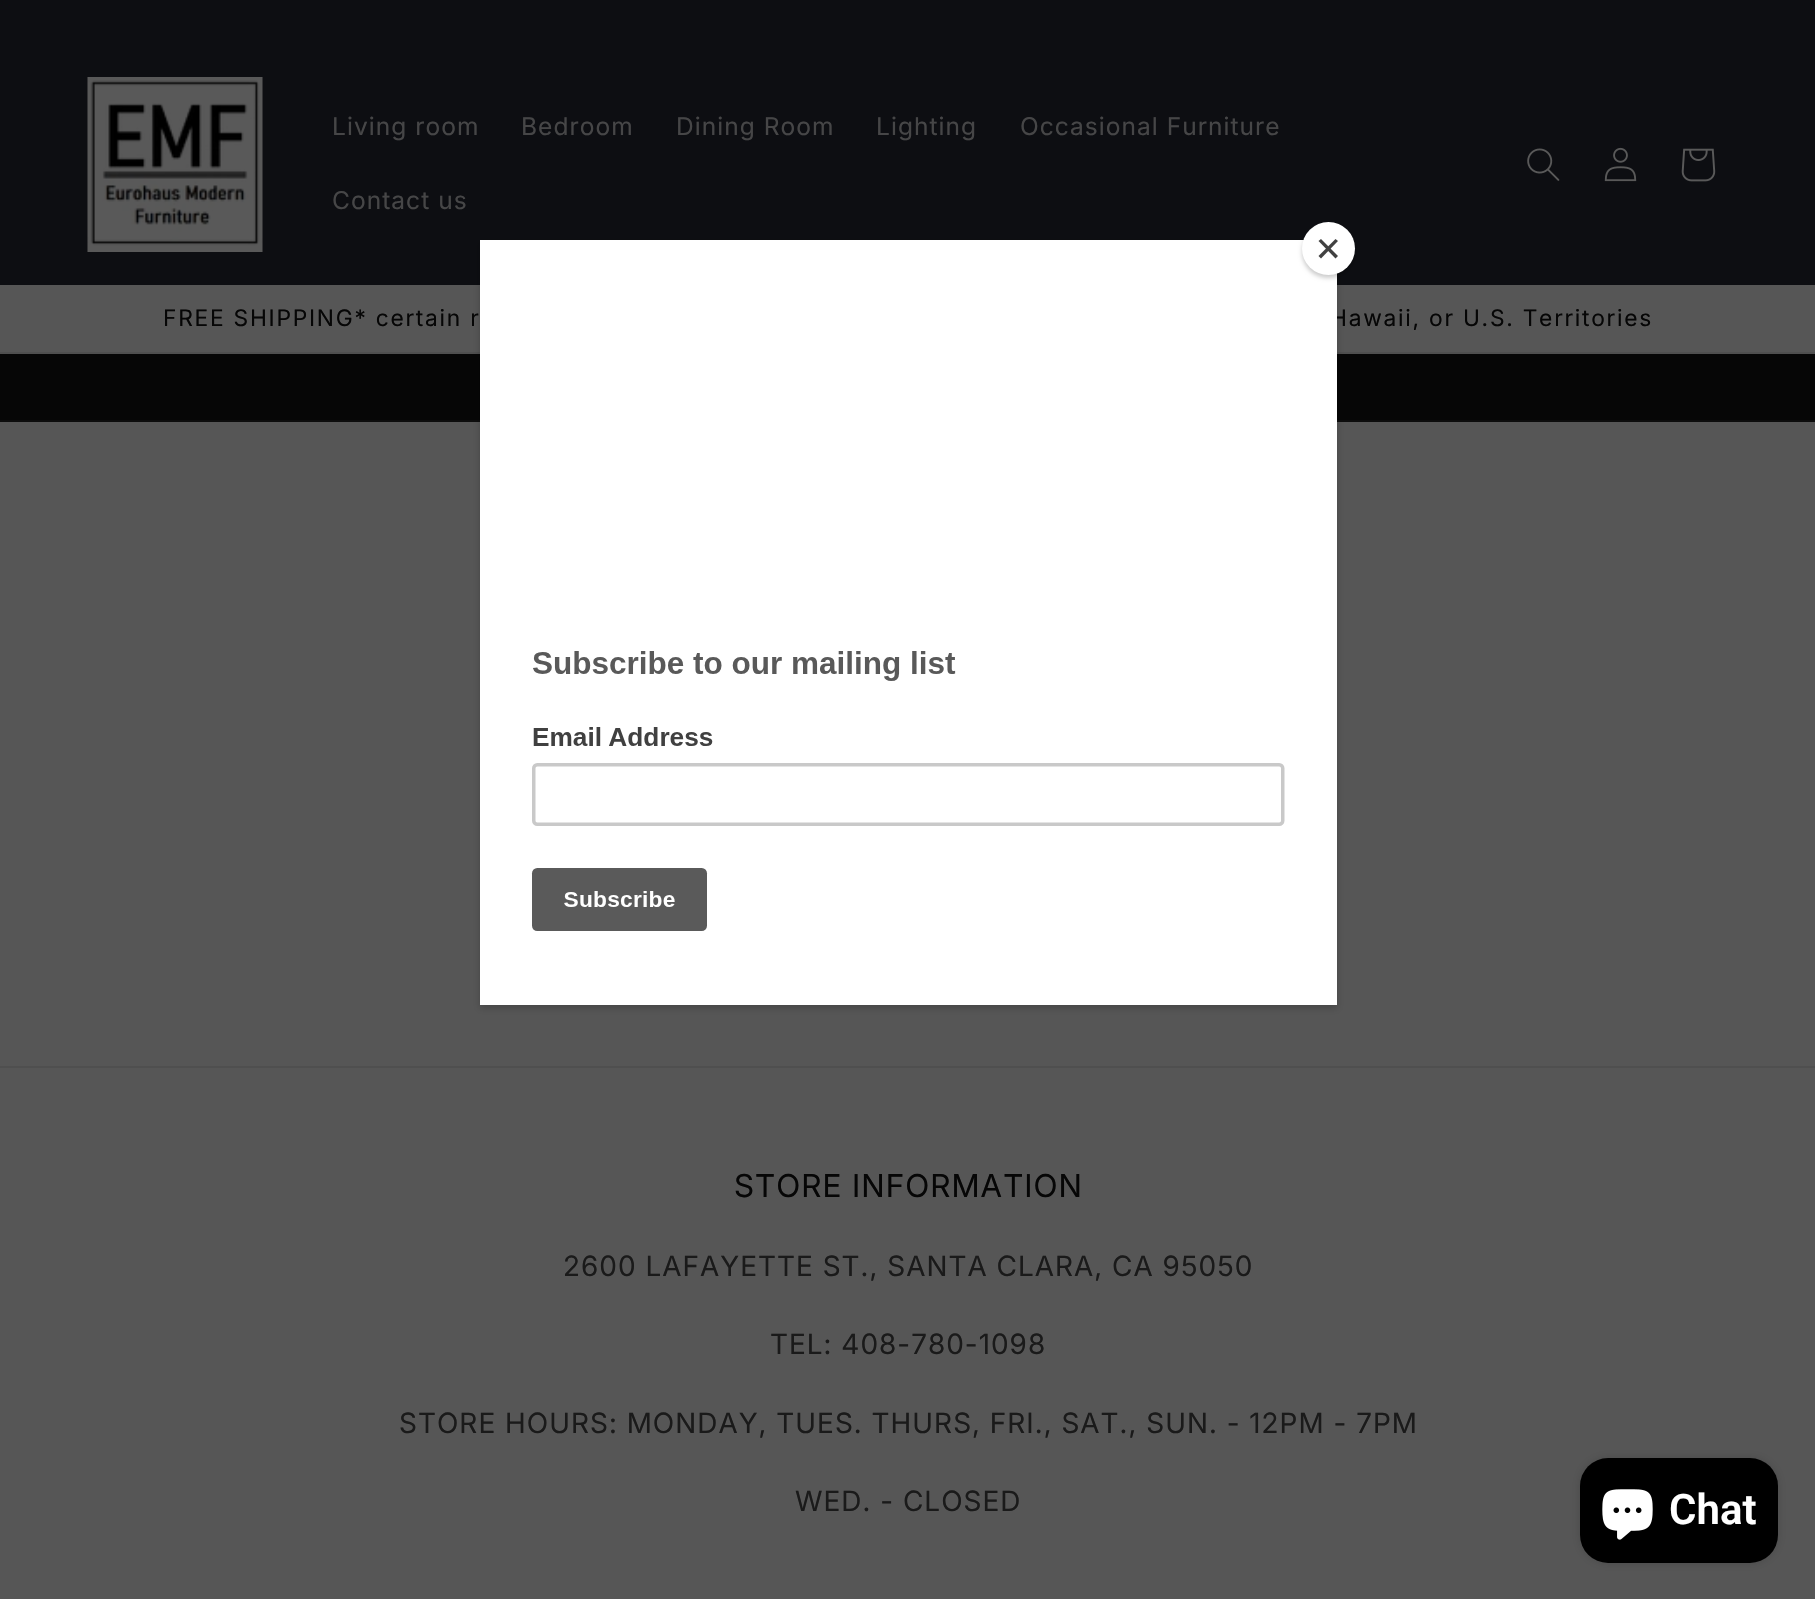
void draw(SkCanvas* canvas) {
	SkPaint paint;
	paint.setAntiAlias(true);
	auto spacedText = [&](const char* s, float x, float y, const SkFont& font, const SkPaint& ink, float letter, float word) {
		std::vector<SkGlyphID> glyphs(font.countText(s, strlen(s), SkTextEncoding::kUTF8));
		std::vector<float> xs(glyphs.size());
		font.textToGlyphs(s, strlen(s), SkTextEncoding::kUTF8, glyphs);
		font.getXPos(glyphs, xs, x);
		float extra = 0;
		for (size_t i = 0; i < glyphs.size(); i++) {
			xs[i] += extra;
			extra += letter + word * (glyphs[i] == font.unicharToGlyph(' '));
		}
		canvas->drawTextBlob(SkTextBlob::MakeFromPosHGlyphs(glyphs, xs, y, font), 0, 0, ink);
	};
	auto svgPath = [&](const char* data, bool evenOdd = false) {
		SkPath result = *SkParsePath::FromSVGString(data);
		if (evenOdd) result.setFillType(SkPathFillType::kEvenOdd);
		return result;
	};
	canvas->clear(0xff565656);
	paint.setColor(0xff0d0e12);
	canvas->drawRect(SkRect::MakeXYWH(0, 0, 1815, 285), paint);
	canvas->drawImageRect(SkImages::DeferredFromEncodedData(SkData::MakeFromFileName("img1.png")), SkRect::MakeXYWH(87, 77, 176, 175), SkSamplingOptions());
	SkFont f1(fontMgr->matchFamilyStyle("Inter", SkFontStyle::Normal()), 24.5);
	f1.setSubpixel(true);
	paint.setColor(0xff464647);
	spacedText("Living room", 332, 135, f1, paint, 1.05, 0);
	spacedText("Bedroom", 521, 135, f1, paint, 1.05, 0);
	spacedText("Dining Room", 676, 135, f1, paint, 1.05, 0);
	spacedText("Lighting", 876, 135, f1, paint, 1.05, 0);
	spacedText("Occasional Furniture", 1020, 135, f1, paint, 1.05, 0);
	spacedText("Contact us", 332, 209, f1, paint, 1.05, 0);
	canvas->drawImageRect(SkImages::DeferredFromEncodedData(SkData::MakeFromFileName("img2.png")), SkRect::MakeXYWH(1527, 148, 33, 33), SkSamplingOptions());
	canvas->drawImageRect(SkImages::DeferredFromEncodedData(SkData::MakeFromFileName("img3.png")), SkRect::MakeXYWH(1604, 147, 33, 35), SkSamplingOptions());
	canvas->drawImageRect(SkImages::DeferredFromEncodedData(SkData::MakeFromFileName("img4.png")), SkRect::MakeXYWH(1681, 148, 35, 34), SkSamplingOptions());
	paint.setColor(0xff4f4f4f);
	canvas->drawRect(SkRect::MakeXYWH(0, 352, 1815, 2), paint);
	paint.setColor(0xff060606);
	canvas->drawRect(SkRect::MakeXYWH(0, 354, 1815, 66), paint);
	paint.setColor(0xff0d0d0d);
	canvas->drawRect(SkRect::MakeXYWH(0, 420, 1815, 2), paint);
	paint.setColor(0x33000000);
	paint.setMaskFilter(SkMaskFilter::MakeBlur(kNormal_SkBlurStyle, 3.5));
	canvas->drawRect(SkRect::MakeXYWH(480, 243, 857, 765), paint);
	paint.setMaskFilter(nullptr);
	SkFont f2(fontMgr->matchFamilyStyle("Inter", SkFontStyle::Normal()), 22.75);
	f2.setSubpixel(true);
	paint.setColor(0xff060606);
	spacedText("Hawaii, or U.S. Territories", 1330, 326, f2, paint, 1.75, 0);
	canvas->drawImageRect(SkImages::DeferredFromEncodedData(SkData::MakeFromFileName("img5.png")), SkRect::MakeXYWH(480, 240, 857, 765), SkSamplingOptions());
	paint.setColor(0x33000000);
	paint.setMaskFilter(SkMaskFilter::MakeBlur(kNormal_SkBlurStyle, 2));
	canvas->drawRoundRect(SkRect::MakeXYWH(1302, 226, 53, 52), 26, 26, paint);
	paint.setMaskFilter(nullptr);
	paint.setColor(0xffffffff);
	canvas->drawCircle(1328.5, 248.5, 26.5, paint);
	paint.setColor(0xff414141);
	canvas->drawPath(svgPath("M1335.5 239L1338 241L1321 258.5L1318.5 256Z"), paint);
	canvas->drawPath(svgPath("M1318.5 241L1321 239L1338 256L1335.5 258.5Z"), paint);
	paint.setColor(0xff060606);
	spacedText("FREE SHIPPING* certain r", 163, 326, f2, paint, 1.75, 0);
	paint.setColor(0xff4f4f4f);
	canvas->drawRect(SkRect::MakeXYWH(0, 1066, 1815, 2), paint);
	SkFont f3(fontMgr->matchFamilyStyle("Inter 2", SkFontStyle::Normal()), 31.5);
	f3.setSubpixel(true);
	paint.setColor(0xff060606);
	spacedText("STORE INFORMATION", 734, 1197, f3, paint, 1.05, 0);
	SkFont f4(fontMgr->matchFamilyStyle("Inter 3", SkFontStyle::Normal()), 28);
	f4.setSubpixel(true);
	paint.setColor(0xff1a1a1a);
	spacedText("2600 LAFAYETTE ST., SANTA CLARA, CA 95050", 563, 1276, f4, paint, 1.05, 0);
	spacedText("TEL: 408-780-1098", 770, 1354, f4, paint, 1.05, 0);
	spacedText("STORE HOURS: MONDAY, TUES. THURS, FRI., SAT., SUN. - 12PM - 7PM", 399, 1433, f4, paint, 1.05, 0);
	spacedText("WED. - CLOSED", 795, 1511, f4, paint, 1.05, 0);
	paint.setColor(0x26000000);
	paint.setMaskFilter(SkMaskFilter::MakeBlur(kNormal_SkBlurStyle, 4.5));
	canvas->drawRoundRect(SkRect::MakeXYWH(1580, 1458, 198, 105), 28, 28, paint);
	paint.setMaskFilter(nullptr);
	paint.setColor(0xff000000);
	canvas->drawRoundRect(SkRect::MakeXYWH(1580, 1458, 198, 105), 28, 28, paint);
	canvas->drawImageRect(SkImages::DeferredFromEncodedData(SkData::MakeFromFileName("img6.png")), SkRect::MakeXYWH(1602, 1489, 51, 51), SkSamplingOptions());
	SkFont f5(fontMgr->matchFamilyStyle("Roboto", SkFontStyle(600, SkFontStyle::kNormal_Width, SkFontStyle::kUpright_Slant)), 42);
	f5.setSubpixel(true);
	paint.setColor(0xffffffff);
	canvas->drawString("Chat", 1669, 1524, f5, paint);
}
